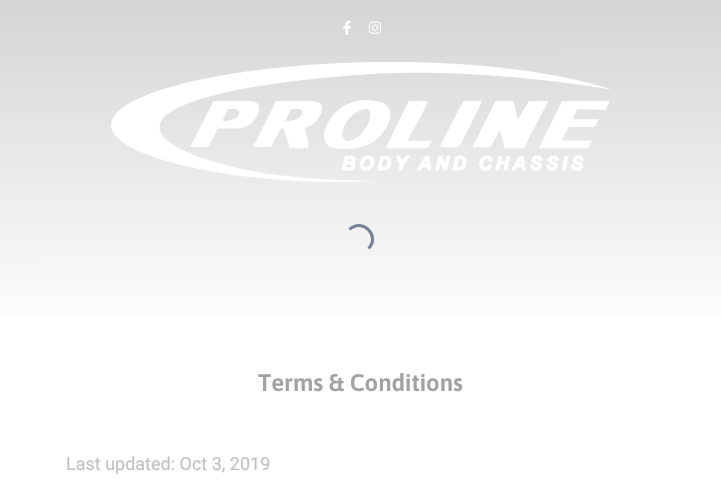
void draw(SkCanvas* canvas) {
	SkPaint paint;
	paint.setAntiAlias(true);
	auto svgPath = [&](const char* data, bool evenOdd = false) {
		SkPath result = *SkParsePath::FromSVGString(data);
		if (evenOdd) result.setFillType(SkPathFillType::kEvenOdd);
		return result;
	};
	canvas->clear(0xffffffff);
	{
		const SkColor colors[] = {0xffababab, 0xffffffff};
		const float stops[] = {0, 1};
		const SkPoint ends[] = {{360, -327}, {361, 336}};
		paint.setShader(SkGradientShader::MakeLinear(ends, colors, stops, 2, SkTileMode::kClamp));
		paint.setAlpha(255);
	}
	canvas->drawRect(SkRect::MakeXYWH(0, 0, 721, 317), paint);
	paint.setStroke(true);
	paint.setStrokeWidth(3);
	paint.setShader(nullptr);
	paint.setColor(0x85001c41);
	canvas->drawPath(svgPath("M349.5 229.5C362 217 381 236 368.5 248.5"), paint);
	canvas->drawImageRect(SkImages::DeferredFromEncodedData(SkData::MakeFromFileName("img1.png")), SkRect::MakeXYWH(343, 20, 8, 15), SkSamplingOptions());
	canvas->drawImageRect(SkImages::DeferredFromEncodedData(SkData::MakeFromFileName("img2.png")), SkRect::MakeXYWH(368, 21, 14, 13), SkSamplingOptions());
	canvas->drawImageRect(SkImages::DeferredFromEncodedData(SkData::MakeFromFileName("img3.png")), SkRect::MakeXYWH(111, 62, 500, 120), SkSamplingOptions());
	SkFont f1(fontMgr->matchFamilyStyle("Asap", SkFontStyle(600, SkFontStyle::kNormal_Width, SkFontStyle::kUpright_Slant)), 24);
	f1.setSubpixel(true);
	paint.setStroke(false);
	paint.setColor(0xffa1a2a4);
	canvas->drawString("Terms & Conditions", 258, 391, f1, paint);
	SkFont f2(fontMgr->matchFamilyStyle("Roboto", SkFontStyle::Normal()), 18);
	f2.setSubpixel(true);
	paint.setColor(0xffc0c0c0);
	canvas->drawString("Last updated: Oct 3, 2019", 66, 470, f2, paint);
}
